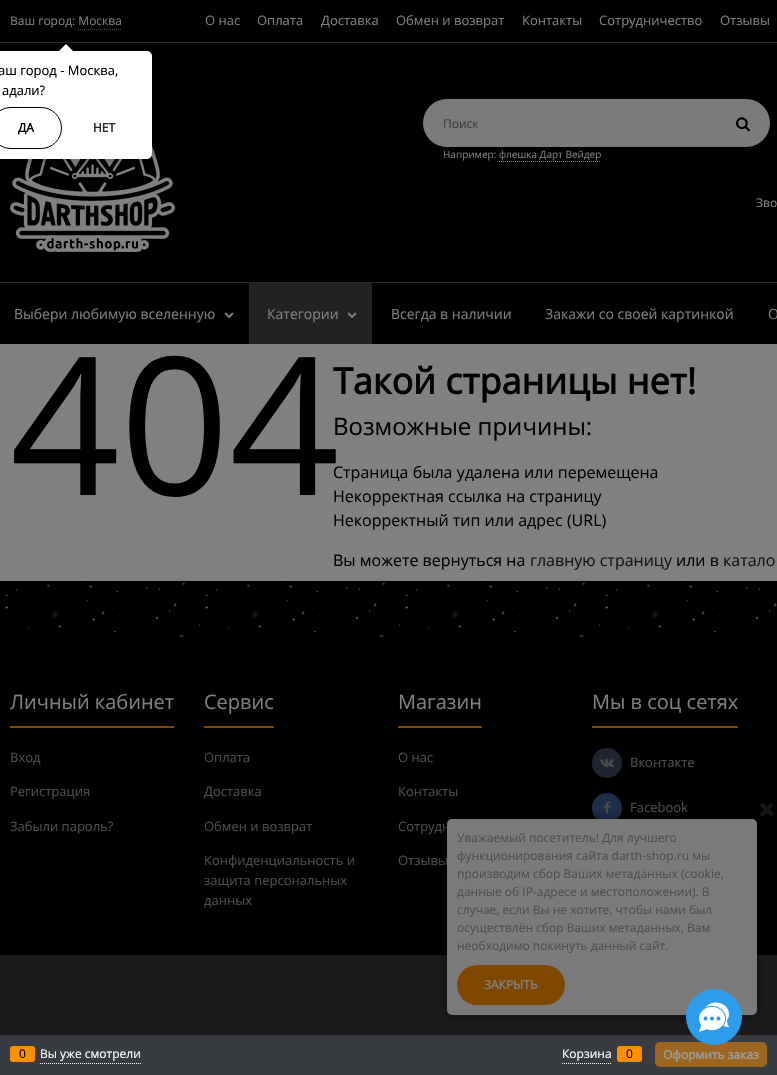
void draw(SkCanvas* canvas) {
	SkPaint paint;
	paint.setAntiAlias(true);
	auto svgPath = [&](const char* data, bool evenOdd = false) {
		SkPath result = *SkParsePath::FromSVGString(data);
		if (evenOdd) result.setFillType(SkPathFillType::kEvenOdd);
		return result;
	};
	canvas->clear(0xffffffff);
	canvas->drawImageRect(SkImages::DeferredFromEncodedData(SkData::MakeFromFileName("img1.png")), SkRect::MakeXYWH(0, 283, 777, 354), SkSamplingOptions());
	paint.setColor(0xff000000);
	canvas->drawRect(SkRect::MakeXYWH(0, 0, 777, 282), paint);
	paint.setColor(0xff282828);
	canvas->drawRect(SkRect::MakeXYWH(0, 282, 777, 1), paint);
	canvas->drawRect(SkRect::MakeXYWH(0, 42, 777, 1), paint);
	SkFont f1(fontMgr->matchFamilyStyle("Open Sans", SkFontStyle::Normal()), 12);
	f1.setSubpixel(true);
	paint.setColor(0xff808080);
	canvas->drawString("Ваш город: Москва", 10, 25, f1, paint);
	paint.setStroke(true);
	paint.setStrokeWidth(1);
	paint.setColor(0xff4a4b4e);
	paint.setPathEffect(SkDashPathEffect::Make({{1, 1}}, 0));
	canvas->drawPath(svgPath("M78 29.5H122"), paint);
	paint.setPathEffect(nullptr);
	SkFont f2(fontMgr->matchFamilyStyle("Open Sans", SkFontStyle::Normal()), 13);
	f2.setSubpixel(true);
	paint.setStroke(false);
	paint.setColor(0xff808080);
	canvas->drawString("О нас", 205, 25, f2, paint);
	canvas->drawString("Оплата", 257, 25, f2, paint);
	canvas->drawString("Доставка", 321, 25, f2, paint);
	canvas->drawString("Обмен и возврат", 396, 25, f2, paint);
	canvas->drawString("Контакты", 522, 25, f2, paint);
	canvas->drawString("Сотрудничество", 599, 25, f2, paint);
	canvas->drawString("Отзывы", 720, 25, f2, paint);
	canvas->drawImageRect(SkImages::DeferredFromEncodedData(SkData::MakeFromFileName("img2.png")), SkRect::MakeXYWH(10, 146, 165, 106), SkSamplingOptions());
	paint.setColor(0xff7b7b7b);
	canvas->drawRoundRect(SkRect::MakeXYWH(423, 99, 347, 48), 24, 24, paint);
	paint.setColor(0xff3b3b3b);
	canvas->drawString("Поиск", 443, 128, f1, paint);
	SkFont f3(fontMgr->matchFamilyStyle("Open Sans", SkFontStyle::Normal()), 10);
	f3.setSubpixel(true);
	paint.setColor(0xff808080);
	canvas->drawString("Например: флешка Дарт Вейдер", 443, 158, f3, paint);
	paint.setStroke(true);
	paint.setPathEffect(SkDashPathEffect::Make({{1, 1}}, 0));
	canvas->drawPath(svgPath("M499 161.5H601"), paint);
	paint.setPathEffect(nullptr);
	canvas->drawImageRect(SkImages::DeferredFromEncodedData(SkData::MakeFromFileName("img3.png")), SkRect::MakeXYWH(736, 117, 14, 15), SkSamplingOptions());
	paint.setStroke(false);
	canvas->drawString("Зво", 756, 207, f1, paint);
	paint.setColor(0xff000000);
	canvas->drawRoundRect(SkRect::MakeXYWH(0, 283, 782, 61), 5, 5, paint);
	SkFont f4(fontMgr->matchFamilyStyle("Open Sans", SkFontStyle::Normal()), 14);
	f4.setSubpixel(true);
	paint.setColor(0xff808080);
	canvas->drawString("Выбери любимую вселенную", 14, 319, f4, paint);
	canvas->drawImageRect(SkImages::DeferredFromEncodedData(SkData::MakeFromFileName("img4.png")), SkRect::MakeXYWH(224, 312, 10, 7), SkSamplingOptions());
	paint.setColor(0xff222222);
	canvas->drawRect(SkRect::MakeXYWH(249, 283, 123, 61), paint);
	paint.setColor(0xff808080);
	canvas->drawString("Категории", 267, 319, f4, paint);
	canvas->drawImageRect(SkImages::DeferredFromEncodedData(SkData::MakeFromFileName("img5.png")), SkRect::MakeXYWH(347, 312, 10, 7), SkSamplingOptions());
	canvas->drawString("Всегда в наличии", 391, 319, f4, paint);
	canvas->drawString("Закажи со своей картинкой", 545, 319, f4, paint);
	canvas->drawString("О", 768, 319, f4, paint);
	canvas->drawRect(SkRect::MakeXYWH(0, 344, 777, 237), paint);
	SkFont f5(fontMgr->matchFamilyStyle("Open Sans", SkFontStyle::Bold()), 36);
	f5.setSubpixel(true);
	paint.setColor(0xff000000);
	canvas->drawString("Такой страницы нет!", 333, 394, f5, paint);
	SkFont f6(fontMgr->matchFamilyStyle("Open Sans", SkFontStyle::Normal()), 24);
	f6.setSubpixel(true);
	canvas->drawString("Возможные причины:", 333, 435, f6, paint);
	SkFont f7(fontMgr->matchFamilyStyle("Open Sans", SkFontStyle::Normal()), 16);
	f7.setSubpixel(true);
	canvas->drawString("Страница была удалена или перемещена", 333, 478, f7, paint);
	canvas->drawString("Некорректная ссылка на страницу", 333, 502, f7, paint);
	SkFont f8(fontMgr->matchFamilyStyle("Open Sans", SkFontStyle::Normal()), 192);
	f8.setSubpixel(true);
	canvas->drawString("404", 10, 495, f8, paint);
	canvas->drawString("Некорректный тип или адрес (URL)", 333, 526, f7, paint);
	canvas->drawString("Вы можете вернуться на", 333, 566, f7, paint);
	paint.setColor(0xff131416);
	canvas->drawString("главную страницу", 530, 566, f7, paint);
	paint.setColor(0xff000000);
	canvas->drawString("или в", 676, 566, f7, paint);
	paint.setColor(0xff131416);
	canvas->drawString("катало", 723, 566, f7, paint);
	paint.setColor(0xff000000);
	canvas->drawRect(SkRect::MakeXYWH(0, 637, 777, 318), paint);
	paint.setColor(0xff804700);
	canvas->drawRect(SkRect::MakeXYWH(10, 726, 164, 2), paint);
	SkFont f9(fontMgr->matchFamilyStyle("Open Sans", SkFontStyle::Normal()), 20);
	f9.setSubpixel(true);
	paint.setColor(0xff808080);
	canvas->drawString("Личный кабинет", 10, 709, f9, paint);
	paint.setColor(0xff4d4d4d);
	canvas->drawString("Вход", 10, 762, f2, paint);
	canvas->drawString("Регистрация", 10, 796, f2, paint);
	canvas->drawString("Забыли пароль?", 10, 831, f2, paint);
	paint.setColor(0xff804700);
	canvas->drawRect(SkRect::MakeXYWH(204, 726, 70, 2), paint);
	paint.setColor(0xff808080);
	canvas->drawString("Сервис", 204, 709, f9, paint);
	paint.setColor(0xff4d4d4d);
	canvas->drawString("Оплата", 204, 762, f2, paint);
	canvas->drawString("Доставка", 204, 796, f2, paint);
	canvas->drawString("Обмен и возврат", 204, 831, f2, paint);
	canvas->drawString("Конфиденциальность и", 204, 865, f2, paint);
	canvas->drawString("защита персональных", 204, 885, f2, paint);
	canvas->drawString("данных", 204, 905, f2, paint);
	paint.setColor(0xff804700);
	canvas->drawRect(SkRect::MakeXYWH(398, 726, 84, 2), paint);
	paint.setColor(0xff808080);
	canvas->drawString("Магазин", 398, 709, f9, paint);
	paint.setColor(0xff4d4d4d);
	canvas->drawString("О нас", 398, 762, f2, paint);
	canvas->drawString("Контакты", 398, 796, f2, paint);
	canvas->drawString("Сотрудн", 398, 831, f2, paint);
	canvas->drawString("Отзывы", 398, 865, f2, paint);
	paint.setColor(0xff804700);
	canvas->drawRect(SkRect::MakeXYWH(592, 726, 146, 2), paint);
	paint.setColor(0xff808080);
	canvas->drawString("Мы в соц сетях", 592, 709, f9, paint);
	paint.setColor(0xff1e2530);
	canvas->drawCircle(607, 763, 15, paint);
	canvas->drawImageRect(SkImages::DeferredFromEncodedData(SkData::MakeFromFileName("img6.png")), SkRect::MakeXYWH(600, 759, 14, 9), SkSamplingOptions());
	paint.setColor(0xff4d4d4d);
	canvas->drawString("Вконтакте", 630, 767, f2, paint);
	paint.setColor(0xff202e4b);
	canvas->drawCircle(607, 808, 15, paint);
	canvas->drawImageRect(SkImages::DeferredFromEncodedData(SkData::MakeFromFileName("img7.png")), SkRect::MakeXYWH(604, 801, 7, 13), SkSamplingOptions());
	paint.setColor(0xff4d4d4d);
	canvas->drawString("Facebook", 630, 812, f2, paint);
	paint.setColor(0xff1a1a1a);
	canvas->drawRect(SkRect::MakeXYWH(0, 955, 777, 80), paint);
	paint.setColor(0xff383c40);
	canvas->drawRect(SkRect::MakeXYWH(0, 1035, 777, 40), paint);
	paint.setStroke(true);
	paint.setColor(0xffffffff);
	paint.setPathEffect(SkDashPathEffect::Make({{1, 1}}, 0));
	canvas->drawPath(svgPath("M40 1063.5H141"), paint);
	paint.setPathEffect(nullptr);
	paint.setStroke(false);
	paint.setColor(0xffff8e00);
	canvas->drawRoundRect(SkRect::MakeXYWH(10, 1046, 25, 16), 3, 3, paint);
	paint.setColor(0xff000000);
	canvas->drawString("0", 19, 1058, f1, paint);
	paint.setColor(0xffffffff);
	canvas->drawString("Вы уже смотрели", 40, 1058, f1, paint);
	paint.setStroke(true);
	paint.setPathEffect(SkDashPathEffect::Make({{1, 1}}, 0));
	canvas->drawPath(svgPath("M562 1063.5H612"), paint);
	paint.setPathEffect(nullptr);
	paint.setStroke(false);
	canvas->drawString("Корзина", 562, 1058, f1, paint);
	paint.setColor(0xffff8e00);
	canvas->drawRoundRect(SkRect::MakeXYWH(617, 1046, 25, 16), 3, 3, paint);
	paint.setColor(0xff000000);
	canvas->drawString("0", 626, 1058, f1, paint);
	paint.setColor(0xff9c6520);
	canvas->drawRoundRect(SkRect::MakeXYWH(655, 1042, 112, 25), 5, 5, paint);
	SkFont f10(fontMgr->matchFamilyStyle("Open Sans", SkFontStyle::Bold()), 12);
	f10.setSubpixel(true);
	paint.setColor(0xff9c9ea0);
	canvas->drawString("Оформить заказ", 663, 1059, f10, paint);
	paint.setColor(0x40000000);
	paint.setMaskFilter(SkMaskFilter::MakeBlur(kNormal_SkBlurStyle, 4.5));
	canvas->drawRoundRect(SkRect::MakeXYWH(-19, 51, 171, 108), 5, 5, paint);
	paint.setMaskFilter(nullptr);
	paint.setColor(0xffffffff);
	canvas->drawRoundRect(SkRect::MakeXYWH(-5, 51, 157, 108), 5, 5, paint);
	canvas->save();
	canvas->clipRect(SkRect::MakeXYWH(0, 42, 152, 9));
	canvas->drawPath(svgPath("M66 44L73 51L66 58L59 51Z"), paint);
	canvas->restore();
	paint.setColor(0xff000000);
	canvas->drawString("аш город - Москва,", -2, 75, f2, paint);
	canvas->drawString("адали?", 2, 95, f2, paint);
	paint.setStroke(true);
	canvas->drawRoundRect(SkRect::MakeXYWH(-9.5, 107.5, 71, 41), 20.5, 20.5, paint);
	paint.setStroke(false);
	canvas->drawString("ДА", 18, 132, f10, paint);
	paint.setColor(0xff26282b);
	canvas->drawString("НЕТ", 93, 132, f10, paint);
	paint.setColor(0x80000000);
	paint.setMaskFilter(SkMaskFilter::MakeBlur(kNormal_SkBlurStyle, 5));
	canvas->drawRoundRect(SkRect::MakeXYWH(447, 819, 310, 196), 5, 5, paint);
	paint.setMaskFilter(nullptr);
	paint.setColor(0xff7a7a7a);
	canvas->drawRoundRect(SkRect::MakeXYWH(447, 819, 310, 196), 5, 5, paint);
	canvas->drawImageRect(SkImages::DeferredFromEncodedData(SkData::MakeFromFileName("img8.png")), SkRect::MakeXYWH(760, 803, 14, 14), SkSamplingOptions());
	paint.setColor(0xff4d4d4d);
	canvas->drawString("Уважаемый посетитель! Для лучшего", 457, 842, f1, paint);
	canvas->drawString("функционирования сайта darth-shop.ru мы", 457, 860, f1, paint);
	canvas->drawString("производим сбор Ваших метаданных (cookie,", 457, 878, f1, paint);
	canvas->drawString("данные об IP-адресе и местоположении). В", 457, 896, f1, paint);
	canvas->drawString("случае, если Вы не хотите, чтобы нами был", 457, 914, f1, paint);
	canvas->drawString("осуществлён сбор Ваших метаданных, Вам", 457, 932, f1, paint);
	canvas->drawString("необходимо покинуть данный сайт.", 457, 950, f1, paint);
	paint.setColor(0xff804700);
	canvas->drawRoundRect(SkRect::MakeXYWH(457, 965, 108, 40), 20, 20, paint);
	paint.setColor(0xff808080);
	canvas->drawString("ЗАКРЫТЬ", 484, 989, f10, paint);
	paint.setColor(0xff2d9ced);
	canvas->drawCircle(714, 1017, 28, paint);
	canvas->drawImageRect(SkImages::DeferredFromEncodedData(SkData::MakeFromFileName("img9.png")), SkRect::MakeXYWH(699, 1002, 30, 30), SkSamplingOptions());
}
